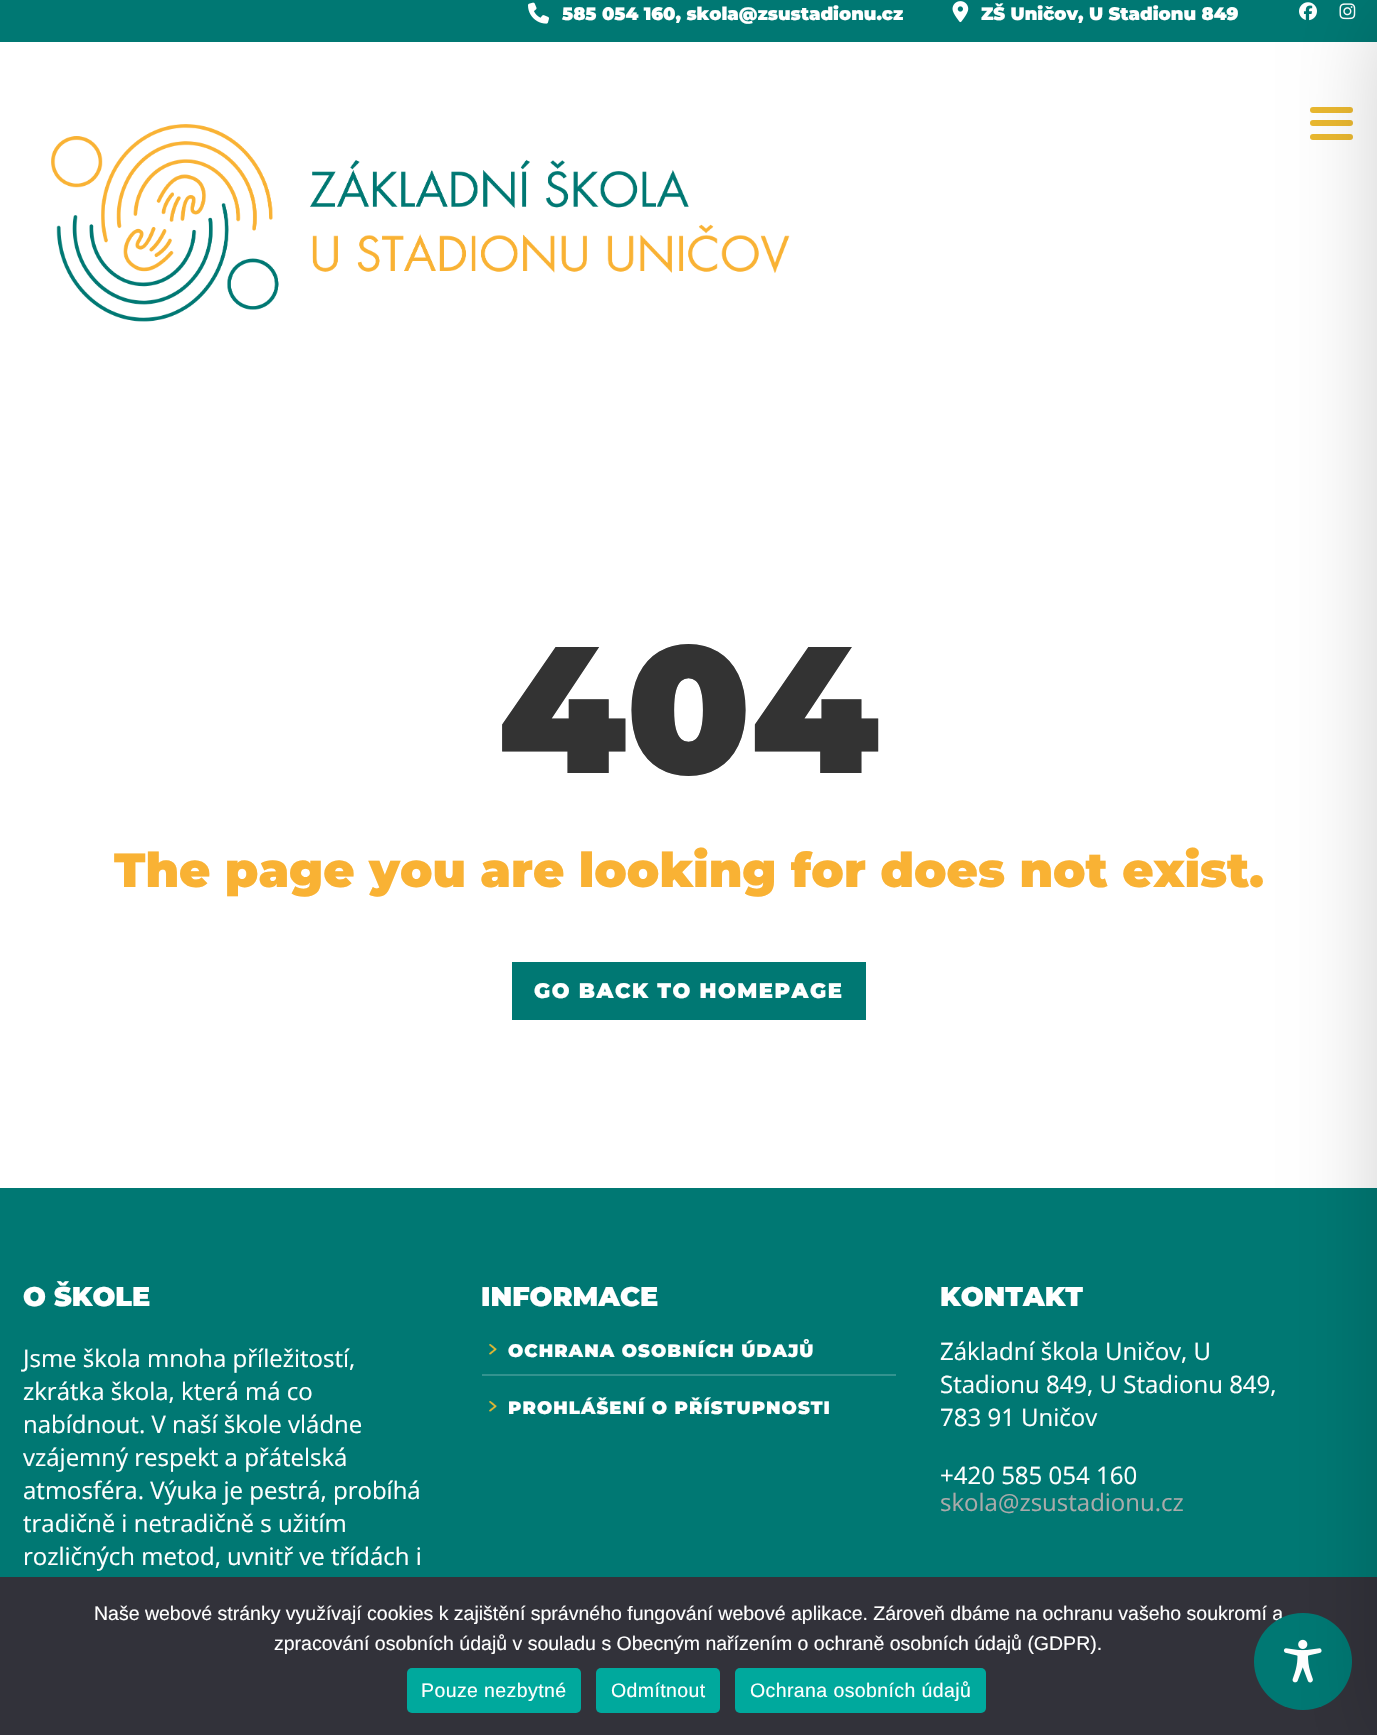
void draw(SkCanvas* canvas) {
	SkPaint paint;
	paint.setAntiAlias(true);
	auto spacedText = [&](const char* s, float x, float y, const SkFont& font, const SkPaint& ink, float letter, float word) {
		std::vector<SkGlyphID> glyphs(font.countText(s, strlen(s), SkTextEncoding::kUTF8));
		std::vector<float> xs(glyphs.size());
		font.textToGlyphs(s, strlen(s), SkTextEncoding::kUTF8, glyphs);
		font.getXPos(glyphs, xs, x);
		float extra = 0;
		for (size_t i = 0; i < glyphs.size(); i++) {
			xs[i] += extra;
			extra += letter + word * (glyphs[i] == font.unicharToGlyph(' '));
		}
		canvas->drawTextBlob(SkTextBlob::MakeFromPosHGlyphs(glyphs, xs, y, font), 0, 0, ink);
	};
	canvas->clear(0xffffffff);
	paint.setColor(0xff007873);
	canvas->drawRect(SkRect::MakeXYWH(0, 0, 1377, 42), paint);
	canvas->drawImageRect(SkImages::DeferredFromEncodedData(SkData::MakeFromFileName("img1.png")), SkRect::MakeXYWH(528, 2, 21, 22), SkSamplingOptions());
	SkFont f1(fontMgr->matchFamilyStyle("Montserrat", SkFontStyle(100, SkFontStyle::kNormal_Width, SkFontStyle::kUpright_Slant)), 18);
	f1.setSubpixel(true);
	paint.setColor(0xffffffff);
	canvas->drawString("585 054 160, skola@zsustadionu.cz", 562, 20, f1, paint);
	canvas->drawImageRect(SkImages::DeferredFromEncodedData(SkData::MakeFromFileName("img2.png")), SkRect::MakeXYWH(952, 1, 17, 22), SkSamplingOptions());
	canvas->drawString("ZŠ Uničov, U Stadionu 849", 981, 20, f1, paint);
	canvas->drawImageRect(SkImages::DeferredFromEncodedData(SkData::MakeFromFileName("img3.png")), SkRect::MakeXYWH(1299, 2, 18, 19), SkSamplingOptions());
	canvas->drawImageRect(SkImages::DeferredFromEncodedData(SkData::MakeFromFileName("img4.png")), SkRect::MakeXYWH(1339, 3, 17, 17), SkSamplingOptions());
	canvas->drawImageRect(SkImages::DeferredFromEncodedData(SkData::MakeFromFileName("img5.png")), SkRect::MakeXYWH(51, 124, 739, 198), SkSamplingOptions());
	paint.setColor(0xffeab830);
	canvas->drawRoundRect(SkRect::MakeXYWH(1310, 107, 43, 6), 3, 3, paint);
	canvas->drawRoundRect(SkRect::MakeXYWH(1310, 120, 43, 6), 3, 3, paint);
	canvas->drawRoundRect(SkRect::MakeXYWH(1310, 134, 43, 6), 3, 3, paint);
	SkFont f2(fontMgr->matchFamilyStyle("Montserrat", SkFontStyle(100, SkFontStyle::kNormal_Width, SkFontStyle::kUpright_Slant)), 180);
	f2.setSubpixel(true);
	paint.setColor(0xff333333);
	canvas->drawString("404", 498, 773, f2, paint);
	SkFont f3(fontMgr->matchFamilyStyle("Montserrat", SkFontStyle(100, SkFontStyle::kNormal_Width, SkFontStyle::kUpright_Slant)), 48);
	f3.setSubpixel(true);
	paint.setColor(0xfff9b234);
	canvas->drawString("The page you are looking for does not exist.", 114, 887, f3, paint);
	paint.setColor(0xff007873);
	canvas->drawRect(SkRect::MakeXYWH(512, 962, 354, 58), paint);
	SkFont f4(fontMgr->matchFamilyStyle("Montserrat", SkFontStyle(100, SkFontStyle::kNormal_Width, SkFontStyle::kUpright_Slant)), 21);
	f4.setSubpixel(true);
	paint.setColor(0xffffffff);
	spacedText("GO BACK TO HOMEPAGE", 534, 998, f4, paint, 1.5, 0);
	paint.setColor(0xff007873);
	canvas->drawRect(SkRect::MakeXYWH(0, 1188, 1377, 389), paint);
	paint.setColor(0xff32323a);
	canvas->drawRect(SkRect::MakeXYWH(0, 1577, 1377, 158), paint);
	SkFont f5(fontMgr->matchFamilyStyle("Liberation Sans", SkFontStyle::Normal()), 19.5);
	f5.setSubpixel(true);
	paint.setColor(0xffffffff);
	canvas->drawString("Naše webové stránky využívají cookies k zajištění správného fungování webové aplikace. Zároveň dbáme na ochranu vašeho soukromí a", 94, 1620, f5, paint);
	paint.setColor(0xff007873);
	canvas->drawRoundRect(SkRect::MakeXYWH(1254, 1613, 98, 97), 48.5, 48.5, paint);
	canvas->drawImageRect(SkImages::DeferredFromEncodedData(SkData::MakeFromFileName("img7.png")), SkRect::MakeXYWH(1283, 1639, 39, 44), SkSamplingOptions());
	paint.setColor(0x33000000);
	paint.setMaskFilter(SkMaskFilter::MakeBlur(kNormal_SkBlurStyle, 45));
	canvas->drawRect(SkRect::MakeXYWH(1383, 15, 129, 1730), paint);
	paint.setMaskFilter(nullptr);
	SkFont f6(fontMgr->matchFamilyStyle("Montserrat", SkFontStyle(100, SkFontStyle::kNormal_Width, SkFontStyle::kUpright_Slant)), 27);
	f6.setSubpixel(true);
	paint.setColor(0xffffffff);
	canvas->drawString("O ŠKOLE", 23, 1306, f6, paint);
	SkFont f7(fontMgr->matchFamilyStyle("Open Sans", SkFontStyle::Normal()), 24);
	f7.setSubpixel(true);
	canvas->drawString("Jsme škola mnoha příležitostí,", 23, 1367, f7, paint);
	canvas->drawString("zkrátka škola, která má co", 23, 1400, f7, paint);
	canvas->drawString("nabídnout. V naší škole vládne", 23, 1433, f7, paint);
	canvas->drawString("vzájemný respekt a přátelská", 23, 1466, f7, paint);
	canvas->drawString("atmosféra. Výuka je pestrá, probíhá", 23, 1499, f7, paint);
	canvas->drawString("tradičně i netradičně s užitím", 23, 1532, f7, paint);
	canvas->drawString("rozličných metod, uvnitř ve třídách i", 23, 1565, f7, paint);
	canvas->drawString("INFORMACE", 481, 1306, f6, paint);
	paint.setColor(0xff33938f);
	canvas->drawRect(SkRect::MakeXYWH(482, 1374, 414, 2), paint);
	canvas->drawImageRect(SkImages::DeferredFromEncodedData(SkData::MakeFromFileName("img6.png")), SkRect::MakeXYWH(489, 1344, 8, 11), SkSamplingOptions());
	paint.setColor(0xffffffff);
	spacedText("OCHRANA OSOBNÍCH ÚDAJŮ", 508, 1357, f1, paint, 1.05, 0);
	canvas->drawImageRect(SkImages::DeferredFromEncodedData(SkData::MakeFromFileName("img6.png")), SkRect::MakeXYWH(489, 1401, 8, 11), SkSamplingOptions());
	spacedText("PROHLÁŠENÍ O PŘÍSTUPNOSTI", 508, 1414, f1, paint, 1.05, 0);
	canvas->drawString("KONTAKT", 940, 1306, f6, paint);
	canvas->drawString("Základní škola Uničov, U", 940, 1360, f7, paint);
	canvas->drawString("Stadionu 849, U Stadionu 849,", 940, 1393, f7, paint);
	canvas->drawString("783 91 Uničov", 940, 1426, f7, paint);
	canvas->drawString("+420 585 054 160", 940, 1484, f7, paint);
	paint.setColor(0xffaaaaaa);
	canvas->drawString("skola@zsustadionu.cz", 940, 1511, f7, paint);
	paint.setColor(0xffffffff);
	canvas->drawString("zpracování osobních údajů v souladu s Obecným nařízením o ochraně osobních údajů (GDPR).", 274, 1650, f5, paint);
	paint.setColor(0xff00a99d);
	canvas->drawRoundRect(SkRect::MakeXYWH(407, 1668, 174, 45), 5, 5, paint);
	paint.setColor(0xffffffff);
	spacedText("Pouze nezbytné", 421, 1697, f5, paint, 0.4, 0);
	paint.setColor(0xff00a99d);
	canvas->drawRoundRect(SkRect::MakeXYWH(596, 1668, 124, 45), 5, 5, paint);
	paint.setColor(0xffffffff);
	spacedText("Odmítnout", 611, 1697, f5, paint, 0.4, 0);
	paint.setColor(0xff00a99d);
	canvas->drawRoundRect(SkRect::MakeXYWH(735, 1668, 251, 45), 5, 5, paint);
	paint.setColor(0xffffffff);
	spacedText("Ochrana osobních údajů", 750, 1697, f5, paint, 0.4, 0);
}
